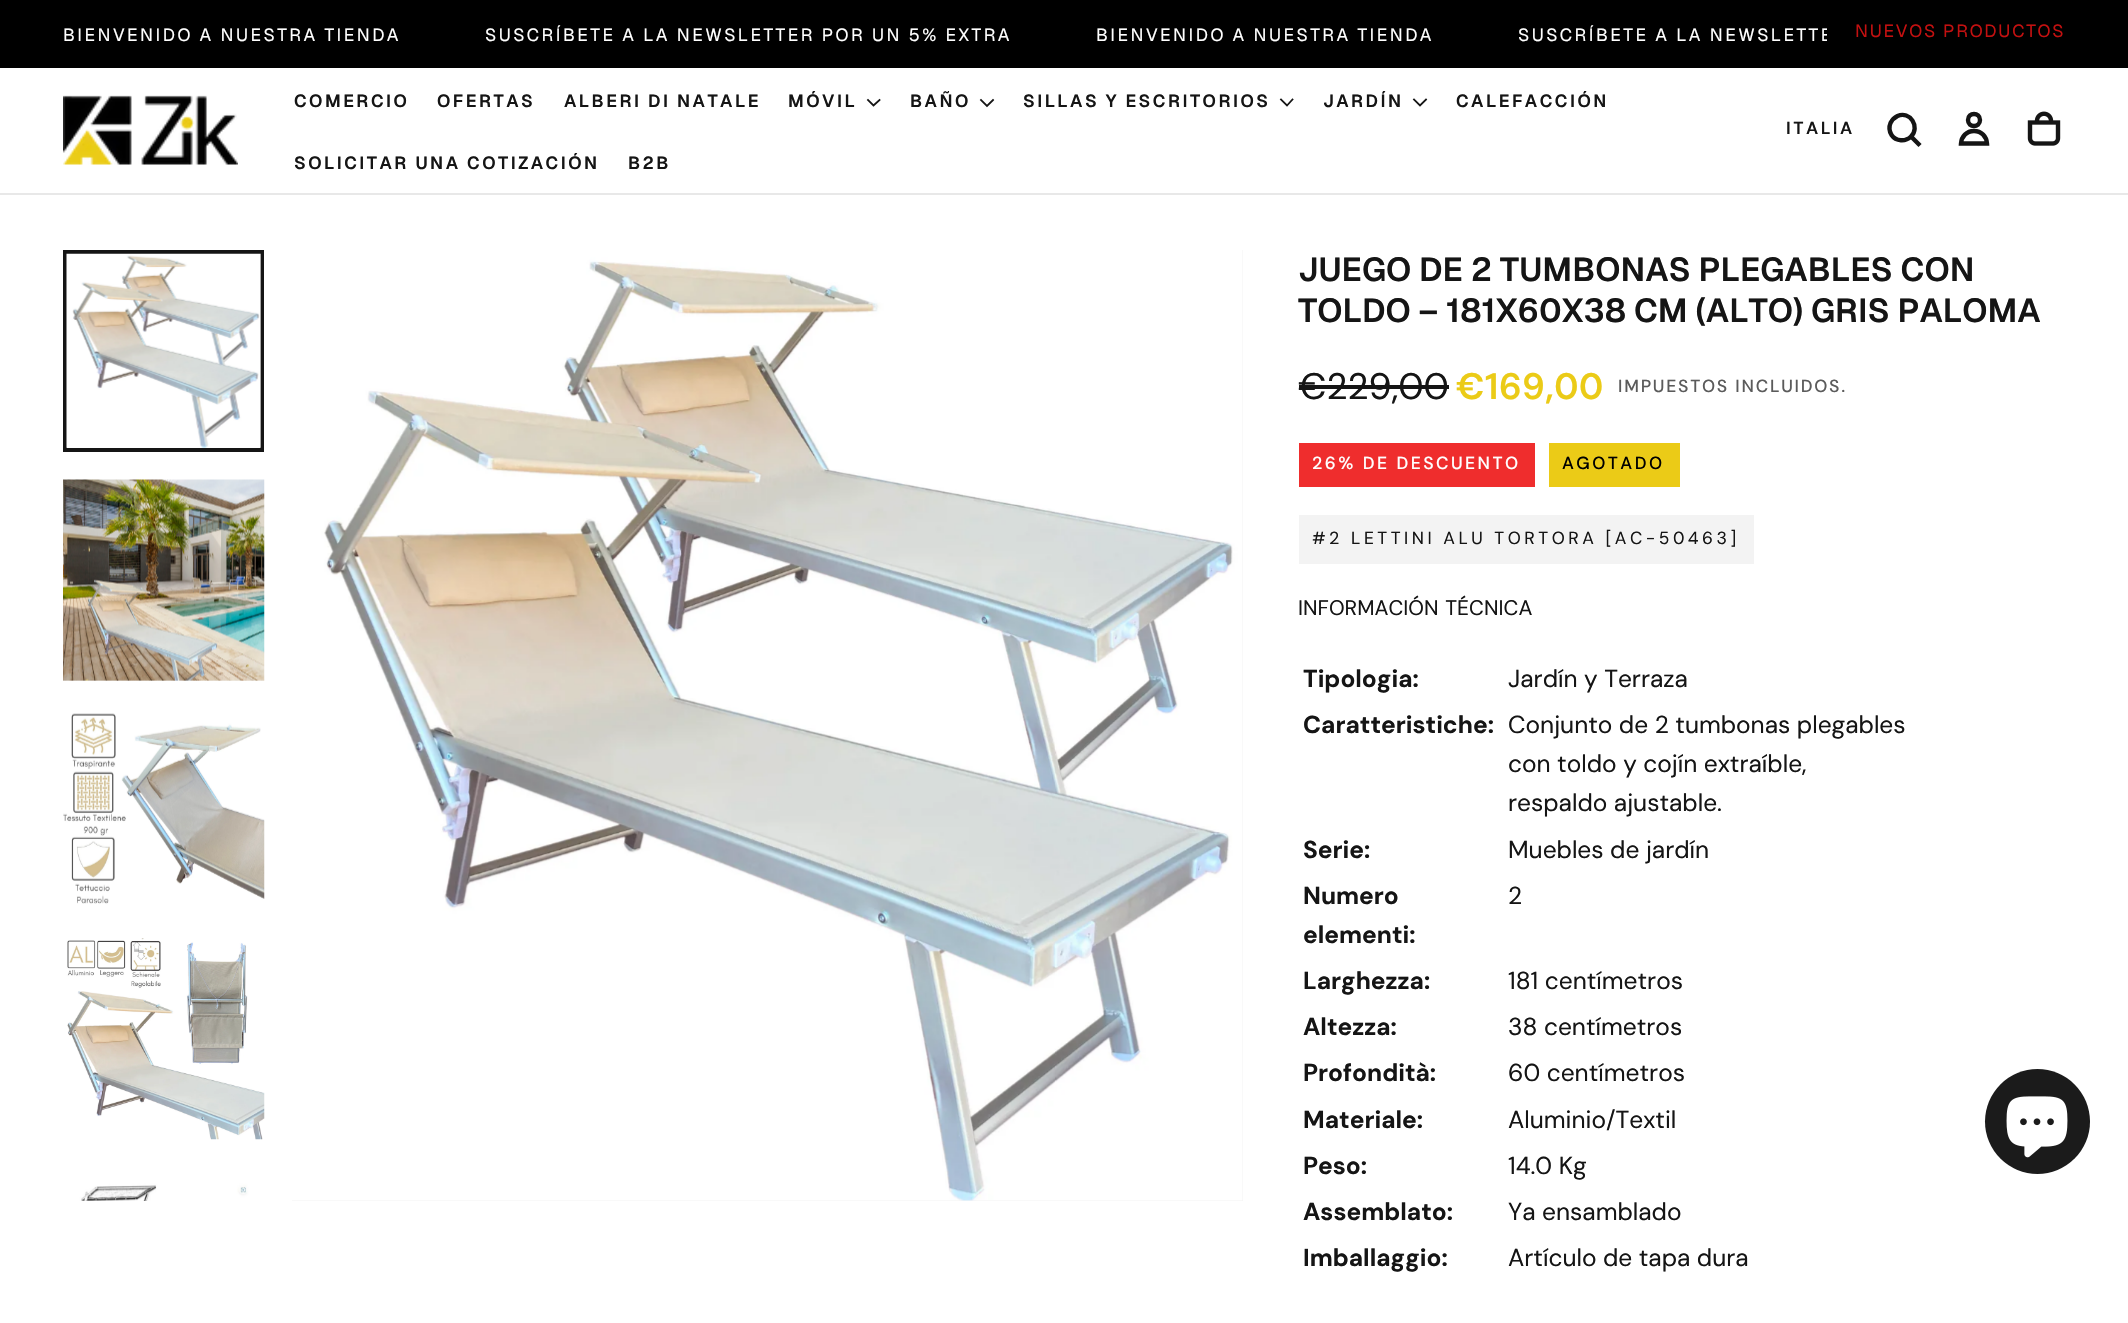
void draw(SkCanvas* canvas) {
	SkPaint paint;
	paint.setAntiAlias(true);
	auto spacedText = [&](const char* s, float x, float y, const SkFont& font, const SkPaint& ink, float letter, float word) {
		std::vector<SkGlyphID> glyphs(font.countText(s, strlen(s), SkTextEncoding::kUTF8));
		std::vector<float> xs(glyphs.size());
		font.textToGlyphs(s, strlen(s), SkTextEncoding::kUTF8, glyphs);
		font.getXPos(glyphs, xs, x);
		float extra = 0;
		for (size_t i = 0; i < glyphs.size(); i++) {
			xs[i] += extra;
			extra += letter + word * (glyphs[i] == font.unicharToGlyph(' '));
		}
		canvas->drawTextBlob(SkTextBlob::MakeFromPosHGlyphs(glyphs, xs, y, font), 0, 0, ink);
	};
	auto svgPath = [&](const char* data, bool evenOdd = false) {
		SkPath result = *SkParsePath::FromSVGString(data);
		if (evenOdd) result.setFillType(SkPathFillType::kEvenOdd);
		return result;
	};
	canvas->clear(0xffffffff);
	paint.setColor(0xff000000);
	canvas->drawRect(SkRect::MakeXYWH(0, 0, 2128, 68), paint);
	SkFont f1(fontMgr->matchFamilyStyle("Geist", SkFontStyle::Normal()), 17.5);
	f1.setSubpixel(true);
	paint.setColor(0xffffffff);
	spacedText("BIENVENIDO A NUESTRA TIENDA", 63, 41, f1, paint, 2.45, 0);
	spacedText("SUSCRÍBETE A LA NEWSLETTER POR UN 5% EXTRA", 485, 41, f1, paint, 2.45, 0);
	spacedText("BIENVENIDO A NUESTRA TIENDA", 1096, 41, f1, paint, 2.45, 0);
	canvas->save();
	canvas->clipRect(SkRect::MakeXYWH(63, 14, 1764, 35));
	spacedText("SUSCRÍBETE A LA NEWSLETTE", 1518, 41, f1, paint, 2.45, 0);
	canvas->restore();
	paint.setColor(0xffc31010);
	spacedText("NUEVOS PRODUCTOS", 1855, 37, f1, paint, 1.75, 0);
	paint.setColor(0xffe8e8e8);
	canvas->drawRect(SkRect::MakeXYWH(0, 193, 2128, 2), paint);
	canvas->drawImageRect(SkImages::DeferredFromEncodedData(SkData::MakeFromFileName("img1.png")), SkRect::MakeXYWH(63, 95, 175, 70), SkSamplingOptions());
	SkFont f2(fontMgr->matchFamilyStyle("Geist", SkFontStyle(600, SkFontStyle::kNormal_Width, SkFontStyle::kUpright_Slant)), 17.5);
	f2.setSubpixel(true);
	paint.setColor(0xff151515);
	spacedText("COMERCIO", 294, 107, f2, paint, 2.45, 0);
	spacedText("OFERTAS", 437, 107, f2, paint, 2.45, 0);
	spacedText("ALBERI DI NATALE", 564, 107, f2, paint, 2.45, 0);
	spacedText("MÓVIL", 788, 107, f2, paint, 2.45, 0);
	paint.setStroke(true);
	paint.setStrokeWidth(1.8);
	paint.setStrokeCap(SkPaint::kSquare_Cap);
	canvas->drawPath(svgPath("M879.5 100L873.5 105.5L868 100"), paint);
	paint.setStroke(false);
	spacedText("BAÑO", 910, 107, f2, paint, 2.45, 0);
	paint.setStroke(true);
	canvas->drawPath(svgPath("M993 100L987 106L981 100"), paint);
	paint.setStroke(false);
	spacedText("SILLAS Y ESCRITORIOS", 1023, 107, f2, paint, 2.45, 0);
	paint.setStroke(true);
	canvas->drawPath(svgPath("M1292.5 99.5L1287 105.5L1281 99.5"), paint);
	paint.setStroke(false);
	spacedText("JARDÍN", 1323, 107, f2, paint, 2.45, 0);
	paint.setStroke(true);
	canvas->drawPath(svgPath("M1426 99.5L1420 105.5L1414 99.5"), paint);
	paint.setStroke(false);
	spacedText("CALEFACCIÓN", 1456, 107, f2, paint, 2.45, 0);
	spacedText("SOLICITAR UNA COTIZACIÓN", 294, 169, f2, paint, 2.45, 0);
	spacedText("B2B", 628, 169, f2, paint, 2.45, 0);
	SkFont f3(fontMgr->matchFamilyStyle("DM Sans", SkFontStyle(600, SkFontStyle::kNormal_Width, SkFontStyle::kUpright_Slant)), 17.5);
	f3.setSubpixel(true);
	spacedText("ITALIA", 1786, 134, f3, paint, 2.45, 0);
	paint.setStroke(true);
	paint.setStrokeWidth(4.4);
	canvas->drawPath(svgPath("M1918.5 144L1911 136.5M1911 136.5C1920.5 127 1910 110.5 1897.5 116C1894.5 117.5 1892 120 1890.5 123C1889 126.5 1889.5 131.5 1891.5 135C1896 141.5 1905.5 142 1911 136.5Z"), paint);
	paint.setStrokeCap(SkPaint::kButt_Cap);
	canvas->drawPath(svgPath("M1980 120C1980 128 1968 128 1968 120C1968 112 1980 112 1980 120ZM1974 131C1966.5 131 1961.5 136.5 1961 143.5H1987C1986.5 136.5 1981.5 131 1974 131Z"), paint);
	canvas->drawImageRect(SkImages::DeferredFromEncodedData(SkData::MakeFromFileName("img2.png")), SkRect::MakeXYWH(2027, 111, 34, 35), SkSamplingOptions());
	paint.setStrokeWidth(4);
	canvas->drawRect(SkRect::MakeXYWH(65, 252, 197, 198), paint);
	canvas->drawImageRect(SkImages::DeferredFromEncodedData(SkData::MakeFromFileName("img3.png")), SkRect::MakeXYWH(66, 253, 195, 195), SkSamplingOptions());
	paint.setStroke(false);
	paint.setColor(0xfff4f4f4);
	canvas->drawRect(SkRect::MakeXYWH(63, 680, 201, 1), paint);
	canvas->drawImageRect(SkImages::DeferredFromEncodedData(SkData::MakeFromFileName("img4.png")), SkRect::MakeXYWH(63, 479, 202, 202), SkSamplingOptions());
	canvas->drawImageRect(SkImages::DeferredFromEncodedData(SkData::MakeFromFileName("img5.png")), SkRect::MakeXYWH(63, 709, 202, 201), SkSamplingOptions());
	canvas->drawImageRect(SkImages::DeferredFromEncodedData(SkData::MakeFromFileName("img6.png")), SkRect::MakeXYWH(63, 938, 202, 202), SkSamplingOptions());
	canvas->drawImageRect(SkImages::DeferredFromEncodedData(SkData::MakeFromFileName("img7.png")), SkRect::MakeXYWH(63, 1167, 201, 34), SkSamplingOptions());
	canvas->drawRect(SkRect::MakeXYWH(292, 250, 951, 951), paint);
	canvas->drawImageRect(SkImages::DeferredFromEncodedData(SkData::MakeFromFileName("img8.png")), SkRect::MakeXYWH(292, 250, 951, 951), SkSamplingOptions());
	SkFont f4(fontMgr->matchFamilyStyle("Geist", SkFontStyle(600, SkFontStyle::kNormal_Width, SkFontStyle::kUpright_Slant)), 33.1);
	f4.setSubpixel(true);
	paint.setColor(0xff151515);
	canvas->drawString("JUEGO DE 2 TUMBONAS PLEGABLES CON", 1298, 281, f4, paint);
	canvas->drawString("TOLDO – 181X60X38 CM (ALTO) GRIS PALOMA", 1298, 322, f4, paint);
	SkFont f5(fontMgr->matchFamilyStyle("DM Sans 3", SkFontStyle::Normal()), 36.75);
	f5.setSubpixel(true);
	canvas->drawString("€229,00", 1298, 399, f5, paint);
	canvas->drawRect(SkRect::MakeXYWH(1299, 385, 150, 4), paint);
	SkFont f6(fontMgr->matchFamilyStyle("DM Sans", SkFontStyle(600, SkFontStyle::kNormal_Width, SkFontStyle::kUpright_Slant)), 36.75);
	f6.setSubpixel(true);
	paint.setColor(0xffebcb17);
	canvas->drawString("€169,00", 1456, 399, f6, paint);
	SkFont f7(fontMgr->matchFamilyStyle("DM Sans", SkFontStyle(500, SkFontStyle::kNormal_Width, SkFontStyle::kUpright_Slant)), 17.5);
	f7.setSubpixel(true);
	paint.setColor(0xff5b5b5b);
	spacedText("IMPUESTOS INCLUIDOS.", 1618, 392, f7, paint, 1.75, 0);
	paint.setColor(0xffef2d2d);
	canvas->drawRect(SkRect::MakeXYWH(1299, 443, 236, 44), paint);
	paint.setColor(0xffffffff);
	spacedText("26% DE DESCUENTO", 1312, 469, f7, paint, 2.45, 0);
	paint.setColor(0xffebcb17);
	canvas->drawRect(SkRect::MakeXYWH(1549, 443, 131, 44), paint);
	paint.setColor(0xff000000);
	spacedText("AGOTADO", 1562, 469, f7, paint, 2.45, 0);
	paint.setColor(0xfff3f3f3);
	canvas->drawRect(SkRect::MakeXYWH(1299, 515, 455, 49), paint);
	SkFont f8(fontMgr->matchFamilyStyle("DM Sans", SkFontStyle::Normal()), 17.5);
	f8.setSubpixel(true);
	paint.setColor(0xff151515);
	spacedText("#2 LETTINI ALU TORTORA [AC-50463]", 1312, 544, f8, paint, 3.5, 0);
	SkFont f9(fontMgr->matchFamilyStyle("DM Sans", SkFontStyle::Normal()), 21);
	f9.setSubpixel(true);
	spacedText("INFORMACIÓN TÉCNICA", 1298, 615, f9, paint, 0, 1);
	SkFont f10(fontMgr->matchFamilyStyle("DM Sans", SkFontStyle::Bold()), 24.5);
	f10.setSubpixel(true);
	canvas->drawString("Tipologia:", 1303, 687, f10, paint);
	SkFont f11(fontMgr->matchFamilyStyle("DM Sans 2", SkFontStyle::Normal()), 24.5);
	f11.setSubpixel(true);
	canvas->drawString("Jardín y Terraza", 1508, 687, f11, paint);
	canvas->drawString("Caratteristiche:", 1303, 733, f10, paint);
	canvas->drawString("Conjunto de 2 tumbonas plegables", 1508, 733, f11, paint);
	canvas->drawString("con toldo y cojín extraíble,", 1508, 772, f11, paint);
	canvas->drawString("respaldo ajustable.", 1508, 811, f11, paint);
	canvas->drawString("Serie:", 1303, 858, f10, paint);
	canvas->drawString("Muebles de jardín", 1508, 858, f11, paint);
	canvas->drawString("Numero", 1303, 904, f10, paint);
	canvas->drawString("elementi:", 1303, 943, f10, paint);
	canvas->drawString("2", 1508, 904, f11, paint);
	canvas->drawString("Larghezza:", 1303, 989, f10, paint);
	canvas->drawString("181 centímetros", 1508, 989, f11, paint);
	canvas->drawString("Altezza:", 1303, 1035, f10, paint);
	canvas->drawString("38 centímetros", 1508, 1035, f11, paint);
	canvas->drawString("Profondità:", 1303, 1081, f10, paint);
	canvas->drawString("60 centímetros", 1508, 1081, f11, paint);
	canvas->drawString("Materiale:", 1303, 1128, f10, paint);
	canvas->drawString("Aluminio/Textil", 1508, 1128, f11, paint);
	canvas->drawString("Peso:", 1303, 1174, f10, paint);
	canvas->drawString("14.0 Kg", 1508, 1174, f11, paint);
	canvas->drawString("Assemblato:", 1303, 1220, f10, paint);
	canvas->drawString("Ya ensamblado", 1508, 1220, f11, paint);
	canvas->drawString("Imballaggio:", 1303, 1266, f10, paint);
	canvas->drawString("Artículo de tapa dura", 1508, 1266, f11, paint);
	paint.setColor(0xff1b1b1b);
	canvas->drawCircle(2037.5, 1121.5, 52.5, paint);
	canvas->drawImageRect(SkImages::DeferredFromEncodedData(SkData::MakeFromFileName("img9.png")), SkRect::MakeXYWH(2006, 1096, 62, 62), SkSamplingOptions());
}
